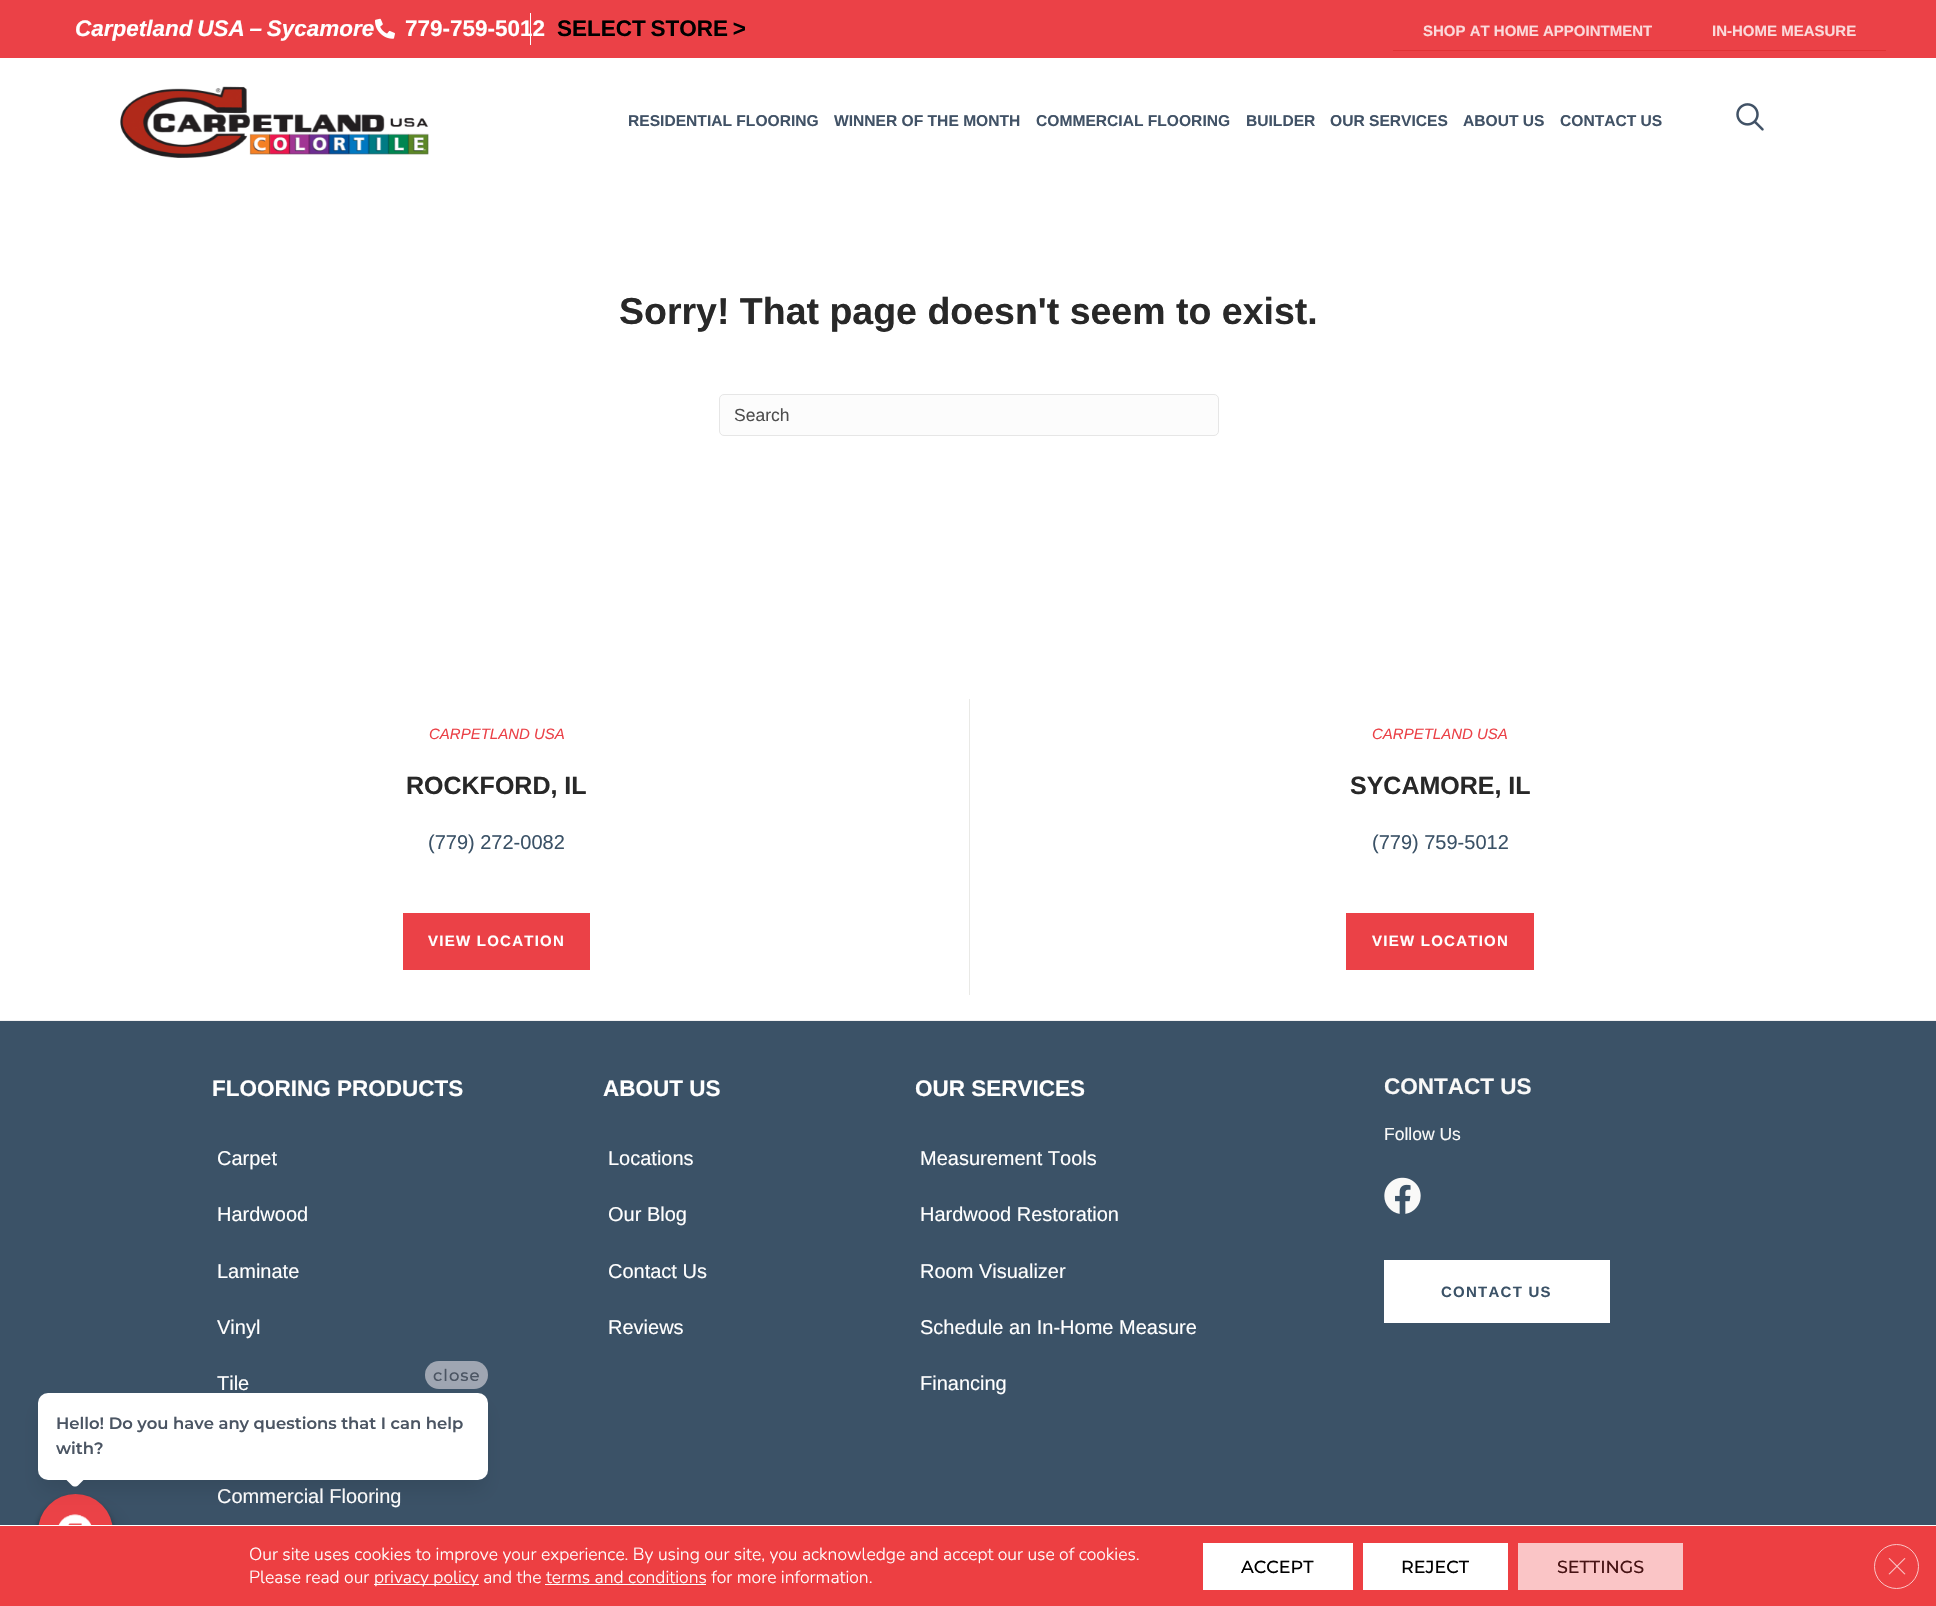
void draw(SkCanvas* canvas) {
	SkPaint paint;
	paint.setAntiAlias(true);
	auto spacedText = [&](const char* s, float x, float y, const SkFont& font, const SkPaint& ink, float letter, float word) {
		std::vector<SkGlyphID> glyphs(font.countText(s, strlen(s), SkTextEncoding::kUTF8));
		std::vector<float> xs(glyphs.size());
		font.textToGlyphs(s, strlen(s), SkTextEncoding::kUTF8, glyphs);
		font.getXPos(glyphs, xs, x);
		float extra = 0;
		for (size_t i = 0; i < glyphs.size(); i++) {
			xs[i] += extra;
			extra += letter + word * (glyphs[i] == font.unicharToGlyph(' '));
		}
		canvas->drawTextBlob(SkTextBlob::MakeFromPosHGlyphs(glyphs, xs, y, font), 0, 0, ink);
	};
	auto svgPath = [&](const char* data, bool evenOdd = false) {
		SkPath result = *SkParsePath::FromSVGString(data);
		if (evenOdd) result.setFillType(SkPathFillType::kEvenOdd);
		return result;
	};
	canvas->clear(0xfff2f2f2);
	paint.setColor(0xffeb4147);
	canvas->drawRect(SkRect::MakeXYWH(0, 0, 1936, 58), paint);
	SkFont f1(fontMgr->matchFamilyStyle("Liberation Sans", SkFontStyle::BoldItalic()), 22.5);
	f1.setSubpixel(true);
	paint.setColor(0xffffffff);
	spacedText("Carpetland USA – Sycamore", 75, 36, f1, paint, 0, -1.5);
	canvas->drawImageRect(SkImages::DeferredFromEncodedData(SkData::MakeFromFileName("img1.png")), SkRect::MakeXYWH(375, 18, 20, 21), SkSamplingOptions());
	SkFont f2(fontMgr->matchFamilyStyle("Liberation Sans", SkFontStyle::Bold()), 22.5);
	f2.setSubpixel(true);
	canvas->drawString("779-759-5012", 405, 36, f2, paint);
	canvas->drawRect(SkRect::MakeXYWH(530, 13, 1, 32), paint);
	paint.setColor(0xff000000);
	spacedText("SELECT STORE >", 557, 36, f2, paint, 0, -1.5);
	paint.setColor(0xffe13336);
	canvas->drawRect(SkRect::MakeXYWH(1393, 50, 493, 1), paint);
	SkFont f3(fontMgr->matchFamilyStyle("Liberation Sans", SkFontStyle::Bold()), 15);
	f3.setSubpixel(true);
	paint.setColor(0xfffbd9da);
	canvas->drawString("SHOP AT HOME APPOINTMENT", 1423, 36, f3, paint);
	canvas->drawString("IN-HOME MEASURE", 1712, 36, f3, paint);
	paint.setColor(0xffffffff);
	canvas->drawRect(SkRect::MakeXYWH(0, 58, 1936, 962), paint);
	canvas->drawImageRect(SkImages::DeferredFromEncodedData(SkData::MakeFromFileName("img2.png")), SkRect::MakeXYWH(120, 86, 309, 72), SkSamplingOptions());
	SkFont f4(fontMgr->matchFamilyStyle("Liberation Sans", SkFontStyle::Bold()), 15.6);
	f4.setSubpixel(true);
	paint.setColor(0xff415266);
	canvas->drawString("RESIDENTIAL FLOORING", 628, 126, f4, paint);
	canvas->drawString("WINNER OF THE MONTH", 834, 126, f4, paint);
	canvas->drawString("COMMERCIAL FLOORING", 1036, 126, f4, paint);
	canvas->drawString("BUILDER", 1246, 126, f4, paint);
	canvas->drawString("OUR SERVICES", 1330, 126, f4, paint);
	canvas->drawString("ABOUT US", 1463, 126, f4, paint);
	canvas->drawString("CONTACT US", 1560, 126, f4, paint);
	canvas->drawImageRect(SkImages::DeferredFromEncodedData(SkData::MakeFromFileName("img3.png")), SkRect::MakeXYWH(1736, 103, 28, 28), SkSamplingOptions());
	SkFont f5(fontMgr->matchFamilyStyle("Liberation Sans", SkFontStyle::Bold()), 37.5);
	f5.setSubpixel(true);
	paint.setColor(0xff282828);
	canvas->drawString("Sorry! That page doesn't seem to exist.", 619, 324, f5, paint);
	paint.setColor(0xfffcfcfc);
	canvas->drawRoundRect(SkRect::MakeXYWH(719.5, 394.5, 499, 41), 4.5, 4.5, paint);
	paint.setStroke(true);
	paint.setStrokeWidth(1);
	paint.setColor(0xffe6e6e6);
	canvas->drawRoundRect(SkRect::MakeXYWH(719.5, 394.5, 499, 41), 4.5, 4.5, paint);
	SkFont f6(fontMgr->matchFamilyStyle("Liberation Sans", SkFontStyle::Normal()), 17.5);
	f6.setSubpixel(true);
	paint.setStroke(false);
	paint.setColor(0xff4f4f4f);
	canvas->drawString("Search", 734, 421, f6, paint);
	SkFont f7(fontMgr->matchFamilyStyle("Liberation Sans", SkFontStyle::Italic()), 15);
	f7.setSubpixel(true);
	paint.setColor(0xffeb4147);
	canvas->drawString("CARPETLAND USA", 429, 739, f7, paint);
	SkFont f8(fontMgr->matchFamilyStyle("Liberation Sans", SkFontStyle::Bold()), 25);
	f8.setSubpixel(true);
	paint.setColor(0xff282828);
	canvas->drawString("ROCKFORD, IL", 406, 794, f8, paint);
	SkFont f9(fontMgr->matchFamilyStyle("Liberation Sans", SkFontStyle::Normal()), 20);
	f9.setSubpixel(true);
	paint.setColor(0xff3b5267);
	canvas->drawString("(779) 272-0082", 428, 849, f9, paint);
	paint.setColor(0xffeb4147);
	canvas->drawRect(SkRect::MakeXYWH(403, 913, 187, 57), paint);
	paint.setColor(0xffffffff);
	spacedText("VIEW LOCATION", 428, 946, f3, paint, 1.25, 0);
	paint.setColor(0xffe9e9e6);
	canvas->drawRect(SkRect::MakeXYWH(969, 699, 1, 296), paint);
	paint.setColor(0xffeb4147);
	canvas->drawString("CARPETLAND USA", 1372, 739, f7, paint);
	paint.setColor(0xff282828);
	canvas->drawString("SYCAMORE, IL", 1350, 794, f8, paint);
	paint.setColor(0xff3b5267);
	canvas->drawString("(779) 759-5012", 1372, 849, f9, paint);
	paint.setColor(0xffeb4147);
	canvas->drawRect(SkRect::MakeXYWH(1346, 913, 188, 57), paint);
	paint.setColor(0xffffffff);
	spacedText("VIEW LOCATION", 1372, 946, f3, paint, 1.25, 0);
	paint.setColor(0xff3b5267);
	canvas->drawRect(SkRect::MakeXYWH(0, 1021, 1936, 504), paint);
	paint.setColor(0xffffffff);
	canvas->drawString("FLOORING PRODUCTS", 212, 1096, f2, paint);
	canvas->drawString("Carpet", 217, 1165, f9, paint);
	canvas->drawString("Hardwood", 217, 1221, f9, paint);
	canvas->drawString("Laminate", 217, 1278, f9, paint);
	canvas->drawString("Vinyl", 217, 1334, f9, paint);
	canvas->drawString("Tile", 217, 1390, f9, paint);
	canvas->drawString("Commercial Flooring", 217, 1503, f9, paint);
	canvas->drawString("ABOUT US", 603, 1096, f2, paint);
	canvas->drawString("Locations", 608, 1165, f9, paint);
	canvas->drawString("Our Blog", 608, 1221, f9, paint);
	canvas->drawString("Contact Us", 608, 1278, f9, paint);
	canvas->drawString("Reviews", 608, 1334, f9, paint);
	canvas->drawString("OUR SERVICES", 915, 1096, f2, paint);
	canvas->drawString("Measurement Tools", 920, 1165, f9, paint);
	canvas->drawString("Hardwood Restoration", 920, 1221, f9, paint);
	canvas->drawString("Room Visualizer", 920, 1278, f9, paint);
	canvas->drawString("Schedule an In-Home Measure", 920, 1334, f9, paint);
	canvas->drawString("Financing", 920, 1390, f9, paint);
	paint.setColor(0xfff9f9f8);
	canvas->drawString("CONTACT US", 1384, 1094, f2, paint);
	canvas->drawString("Follow Us", 1384, 1140, f6, paint);
	canvas->drawImageRect(SkImages::DeferredFromEncodedData(SkData::MakeFromFileName("img4.png")), SkRect::MakeXYWH(1384, 1177, 37, 37), SkSamplingOptions());
	paint.setColor(0xffffffff);
	canvas->drawRect(SkRect::MakeXYWH(1384, 1260, 226, 63), paint);
	paint.setColor(0xff3b5267);
	spacedText("CONTACT US", 1441, 1297, f3, paint, 1.25, 0);
	paint.setColor(0xff9fa6b2);
	canvas->drawRoundRect(SkRect::MakeXYWH(425, 1361, 63, 28), 14, 14, paint);
	SkFont f10(fontMgr->matchFamilyStyle("Montserrat", SkFontStyle(500, SkFontStyle::kNormal_Width, SkFontStyle::kUpright_Slant)), 16.4);
	f10.setSubpixel(true);
	paint.setColor(0xff4b5563);
	spacedText("close", 433, 1381, f10, paint, 1, 0);
	paint.setColor(0xff000000);
	paint.setMaskFilter(SkMaskFilter::MakeBlur(kNormal_SkBlurStyle, 4));
	canvas->drawRoundRect(SkRect::MakeXYWH(40, 1501, 70, 70), 35, 35, paint);
	paint.setMaskFilter(nullptr);
	paint.setColor(0x1a000000);
	paint.setMaskFilter(SkMaskFilter::MakeBlur(kNormal_SkBlurStyle, 9.5));
	canvas->drawRoundRect(SkRect::MakeXYWH(54, 1510, 67, 68), 33.5, 33.5, paint);
	paint.setMaskFilter(nullptr);
	paint.setColor(0xffeb4247);
	canvas->drawCircle(75.5, 1531.5, 37.5, paint);
	canvas->drawImageRect(SkImages::DeferredFromEncodedData(SkData::MakeFromFileName("img5.png")), SkRect::MakeXYWH(58, 1514, 34, 11), SkSamplingOptions());
	paint.setColor(0x1a000000);
	paint.setMaskFilter(SkMaskFilter::MakeBlur(kNormal_SkBlurStyle, 9.5));
	canvas->drawRoundRect(SkRect::MakeXYWH(41, 1409, 443, 80), 6, 6, paint);
	paint.setMaskFilter(nullptr);
	paint.setColor(0xffffffff);
	canvas->drawRoundRect(SkRect::MakeXYWH(38, 1393, 450, 87), 10, 10, paint);
	SkFont f11(fontMgr->matchFamilyStyle("Montserrat", SkFontStyle(600, SkFontStyle::kNormal_Width, SkFontStyle::kUpright_Slant)), 16.4);
	f11.setSubpixel(true);
	paint.setColor(0xff4b5563);
	canvas->drawString("Hello! Do you have any questions that I can help", 56, 1429, f11, paint);
	canvas->drawString("with?", 56, 1454, f11, paint);
	paint.setColor(0xffffffff);
	canvas->drawPath(svgPath("M78.5 1465L85 1471.5C87 1473.5 87 1476.5 85 1478.5L78.5 1485C76.5 1487 73.5 1487 71.5 1485L65 1478.5C63 1476.5 63 1473.5 65 1471.5L71.5 1465C73.5 1463 76.5 1463 78.5 1465Z"), paint);
	paint.setColor(0xffed3f42);
	canvas->drawRect(SkRect::MakeXYWH(0, 1526, 1936, 80), paint);
	paint.setColor(0xffffffff);
	canvas->drawRect(SkRect::MakeXYWH(0, 1525, 1936, 1), paint);
	SkFont f12(fontMgr->matchFamilyStyle("Nunito", SkFontStyle(300, SkFontStyle::kNormal_Width, SkFontStyle::kUpright_Slant)), 17.5);
	f12.setSubpixel(true);
	canvas->drawString("Our site uses cookies to improve your experience. By using our site, you acknowledge and accept our use of cookies.", 249, 1560, f12, paint);
	canvas->drawString("Please read our", 249, 1583, f12, paint);
	canvas->drawRect(SkRect::MakeXYWH(374, 1584, 105, 1), paint);
	canvas->drawString("privacy policy and the terms and conditions for more information.", 374, 1583, f12, paint);
	canvas->drawRect(SkRect::MakeXYWH(545, 1584, 161, 1), paint);
	canvas->drawRect(SkRect::MakeXYWH(1203, 1543, 150, 47), paint);
	SkFont f13(fontMgr->matchFamilyStyle("Montserrat", SkFontStyle(500, SkFontStyle::kNormal_Width, SkFontStyle::kUpright_Slant)), 17.5);
	f13.setSubpixel(true);
	paint.setColor(0xff000000);
	canvas->drawString("ACCEPT", 1241, 1573, f13, paint);
	paint.setColor(0xffffffff);
	canvas->drawRect(SkRect::MakeXYWH(1363, 1543, 145, 47), paint);
	paint.setColor(0xff000000);
	canvas->drawString("REJECT", 1401, 1573, f13, paint);
	paint.setColor(0xfffac5c6);
	canvas->drawRect(SkRect::MakeXYWH(1518, 1543, 165, 47), paint);
	paint.setColor(0xff471314);
	canvas->drawString("SETTINGS", 1557, 1573, f13, paint);
	paint.setStroke(true);
	paint.setColor(0xfffac5c6);
	canvas->drawCircle(1896.5, 1566.5, 22, paint);
	paint.setStroke(false);
	canvas->drawPath(svgPath("M1904.5 1558L1905.5 1558.5L1889.5 1574.5L1888.5 1574Z"), paint);
	canvas->drawPath(svgPath("M1888.5 1558.5L1889.5 1558L1905.5 1574L1904.5 1574.5Z"), paint);
}
